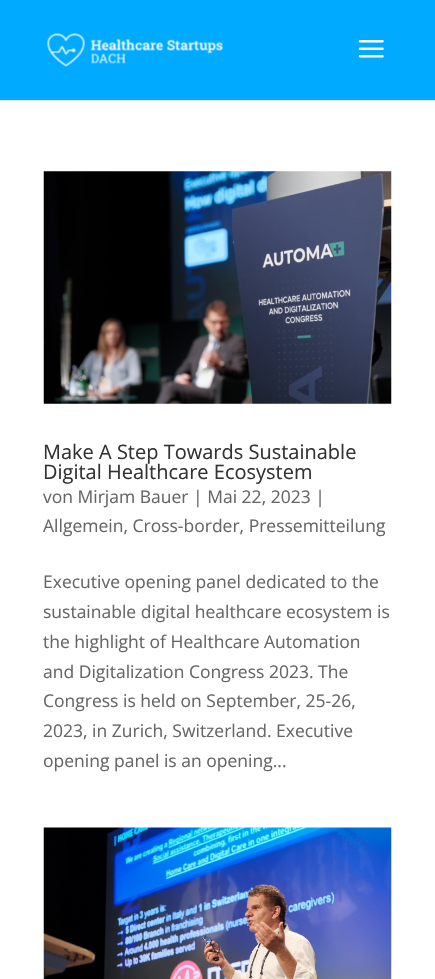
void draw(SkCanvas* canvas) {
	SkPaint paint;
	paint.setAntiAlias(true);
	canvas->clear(0xffffffff);
	paint.setColor(0xffe6e6e6);
	canvas->drawRect(SkRect::MakeXYWH(0, 100, 435, 1), paint);
	paint.setColor(0xff00aaff);
	canvas->drawRect(SkRect::MakeXYWH(0, 0, 435, 100), paint);
	canvas->drawImageRect(SkImages::DeferredFromEncodedData(SkData::MakeFromFileName("img1.png")), SkRect::MakeXYWH(47, 33, 176, 34), SkSamplingOptions());
	canvas->drawImageRect(SkImages::DeferredFromEncodedData(SkData::MakeFromFileName("img2.png")), SkRect::MakeXYWH(358, 40, 26, 18), SkSamplingOptions());
	canvas->drawImageRect(SkImages::DeferredFromEncodedData(SkData::MakeFromFileName("img3.png")), SkRect::MakeXYWH(43, 171, 349, 233), SkSamplingOptions());
	SkFont f1(fontMgr->matchFamilyStyle("Open Sans", SkFontStyle::Normal()), 20);
	f1.setSubpixel(true);
	paint.setColor(0xff333333);
	canvas->drawString("Make A Step Towards Sustainable", 43, 459, f1, paint);
	canvas->drawString("Digital Healthcare Ecosystem", 43, 479, f1, paint);
	SkFont f2(fontMgr->matchFamilyStyle("Open Sans", SkFontStyle::Normal()), 17.5);
	f2.setSubpixel(true);
	paint.setColor(0xff666666);
	canvas->drawString("von Mirjam Bauer | Mai 22, 2023 |", 43, 503, f2, paint);
	canvas->drawString("Allgemein, Cross-border, Pressemitteilung", 43, 532, f2, paint);
	canvas->drawString("Executive opening panel dedicated to the", 43, 588, f2, paint);
	canvas->drawString("sustainable digital healthcare ecosystem is", 43, 618, f2, paint);
	canvas->drawString("the highlight of Healthcare Automation", 43, 648, f2, paint);
	canvas->drawString("and Digitalization Congress 2023. The", 43, 678, f2, paint);
	canvas->drawString("Congress is held on September, 25-26,", 43, 707, f2, paint);
	canvas->drawString("2023, in Zurich, Switzerland. Executive", 43, 737, f2, paint);
	canvas->drawString("opening panel is an opening...", 43, 767, f2, paint);
	canvas->drawImageRect(SkImages::DeferredFromEncodedData(SkData::MakeFromFileName("img4.png")), SkRect::MakeXYWH(43, 827, 349, 152), SkSamplingOptions());
}
